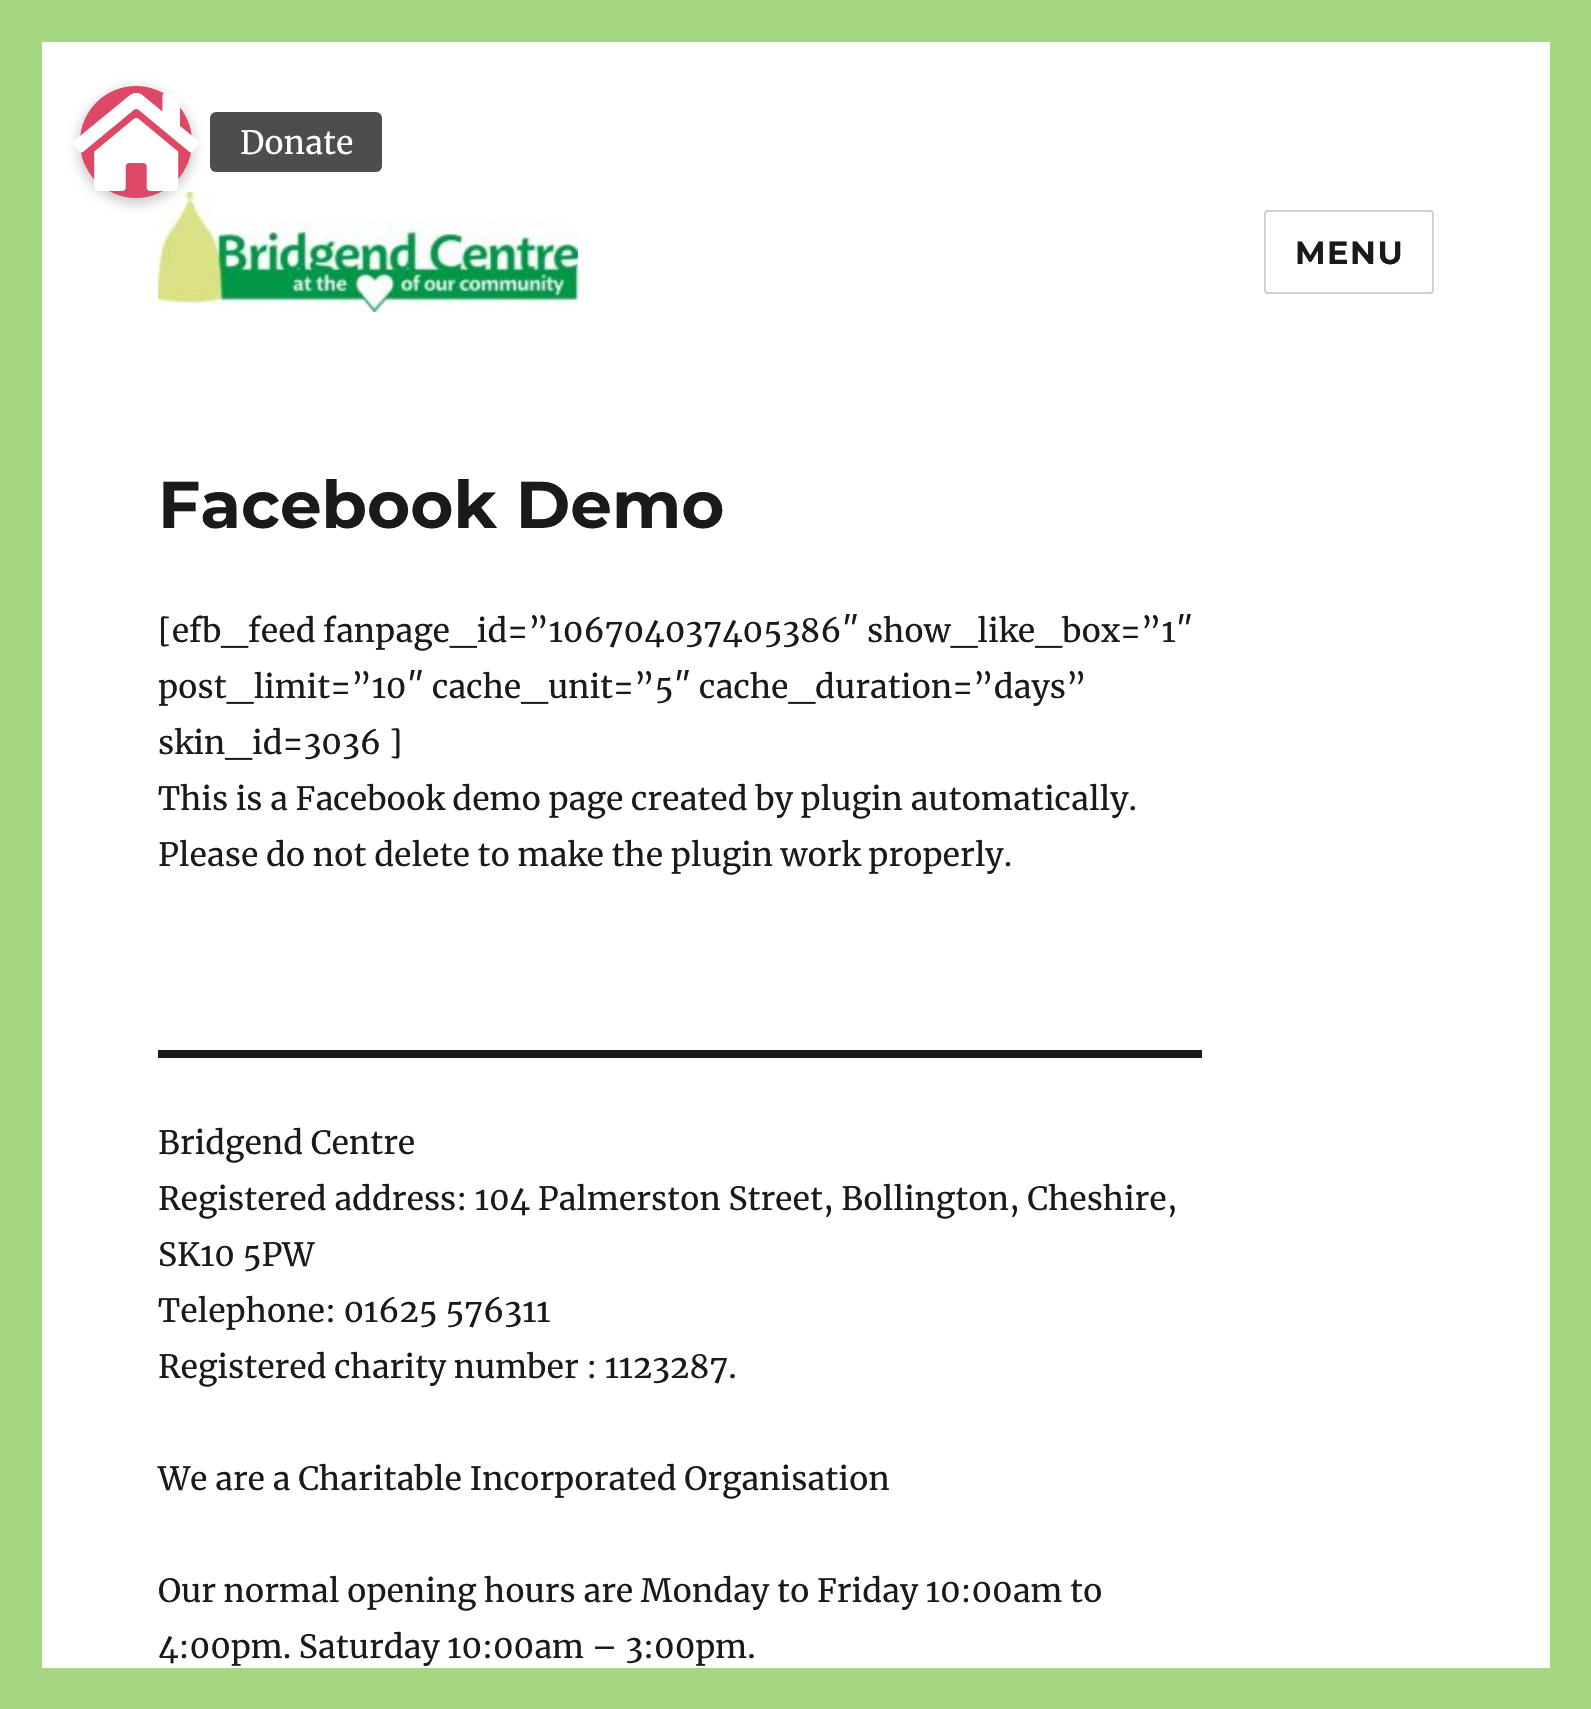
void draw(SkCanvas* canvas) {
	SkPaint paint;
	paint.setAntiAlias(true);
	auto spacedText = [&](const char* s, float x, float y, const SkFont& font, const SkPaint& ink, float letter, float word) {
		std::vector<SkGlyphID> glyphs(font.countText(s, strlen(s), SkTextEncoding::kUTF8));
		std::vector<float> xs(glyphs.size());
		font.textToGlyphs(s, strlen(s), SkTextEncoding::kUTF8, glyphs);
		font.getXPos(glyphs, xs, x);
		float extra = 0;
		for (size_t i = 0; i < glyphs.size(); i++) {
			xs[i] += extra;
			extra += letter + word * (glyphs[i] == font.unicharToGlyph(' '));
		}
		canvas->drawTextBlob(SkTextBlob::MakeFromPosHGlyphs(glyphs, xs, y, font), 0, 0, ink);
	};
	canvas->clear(0xffa5d682);
	paint.setColor(0xffffffff);
	canvas->drawRect(SkRect::MakeXYWH(42, 42, 1508, 1626), paint);
	canvas->drawImageRect(SkImages::DeferredFromEncodedData(SkData::MakeFromFileName("img2.png")), SkRect::MakeXYWH(158, 192, 420, 120), SkSamplingOptions());
	paint.setColor(0x33000000);
	paint.setMaskFilter(SkMaskFilter::MakeBlur(kNormal_SkBlurStyle, 6));
	canvas->drawRoundRect(SkRect::MakeXYWH(78, 88, 116, 116), 58, 58, paint);
	paint.setMaskFilter(nullptr);
	paint.setColor(0xffdc4866);
	canvas->drawCircle(136, 142, 56, paint);
	canvas->drawImageRect(SkImages::DeferredFromEncodedData(SkData::MakeFromFileName("img1.png")), SkRect::MakeXYWH(73, 93, 126, 98), SkSamplingOptions());
	paint.setColor(0xff4e4c4c);
	canvas->drawRoundRect(SkRect::MakeXYWH(210, 112, 172, 60), 6, 6, paint);
	SkFont f1(fontMgr->matchFamilyStyle("Merriweather", SkFontStyle::Normal()), 32);
	f1.setSubpixel(true);
	paint.setColor(0xffffffff);
	canvas->drawString("Donate", 240, 154, f1, paint);
	paint.setStroke(true);
	paint.setStrokeWidth(2);
	paint.setColor(0xffd1d1d1);
	canvas->drawRoundRect(SkRect::MakeXYWH(1265, 211, 168, 82), 3, 3, paint);
	SkFont f2(fontMgr->matchFamilyStyle("Montserrat", SkFontStyle(100, SkFontStyle::kNormal_Width, SkFontStyle::kUpright_Slant)), 32);
	f2.setSubpixel(true);
	paint.setStroke(false);
	paint.setColor(0xff1a1a1a);
	spacedText("MENU", 1295, 264, f2, paint, 1.5, 0);
	SkFont f3(fontMgr->matchFamilyStyle("Montserrat", SkFontStyle(100, SkFontStyle::kNormal_Width, SkFontStyle::kUpright_Slant)), 66);
	f3.setSubpixel(true);
	canvas->drawString("Facebook Demo", 158, 528, f3, paint);
	canvas->drawString("[efb_feed fanpage_id=”106704037405386″ show_like_box=”1″", 158, 642, f1, paint);
	canvas->drawString("post_limit=”10″ cache_unit=”5″ cache_duration=”days”", 158, 698, f1, paint);
	canvas->drawString("skin_id=3036 ]", 158, 754, f1, paint);
	canvas->drawString("This is a Facebook demo page created by plugin automatically.", 158, 810, f1, paint);
	canvas->drawString("Please do not delete to make the plugin work properly.", 158, 866, f1, paint);
	canvas->drawRect(SkRect::MakeXYWH(158, 1050, 1044, 8), paint);
	canvas->drawString("Bridgend Centre", 158, 1154, f1, paint);
	canvas->drawString("Registered address: 104 Palmerston Street, Bollington, Cheshire,", 158, 1210, f1, paint);
	canvas->drawString("SK10 5PW", 158, 1266, f1, paint);
	canvas->drawString("Telephone: 01625 576311", 158, 1322, f1, paint);
	canvas->drawString("Registered charity number : 1123287.", 158, 1378, f1, paint);
	canvas->drawString("We are a Charitable Incorporated Organisation", 158, 1490, f1, paint);
	canvas->drawString("Our normal opening hours are Monday to Friday 10:00am to", 158, 1602, f1, paint);
	canvas->drawString("4:00pm. Saturday 10:00am – 3:00pm.", 158, 1658, f1, paint);
}
